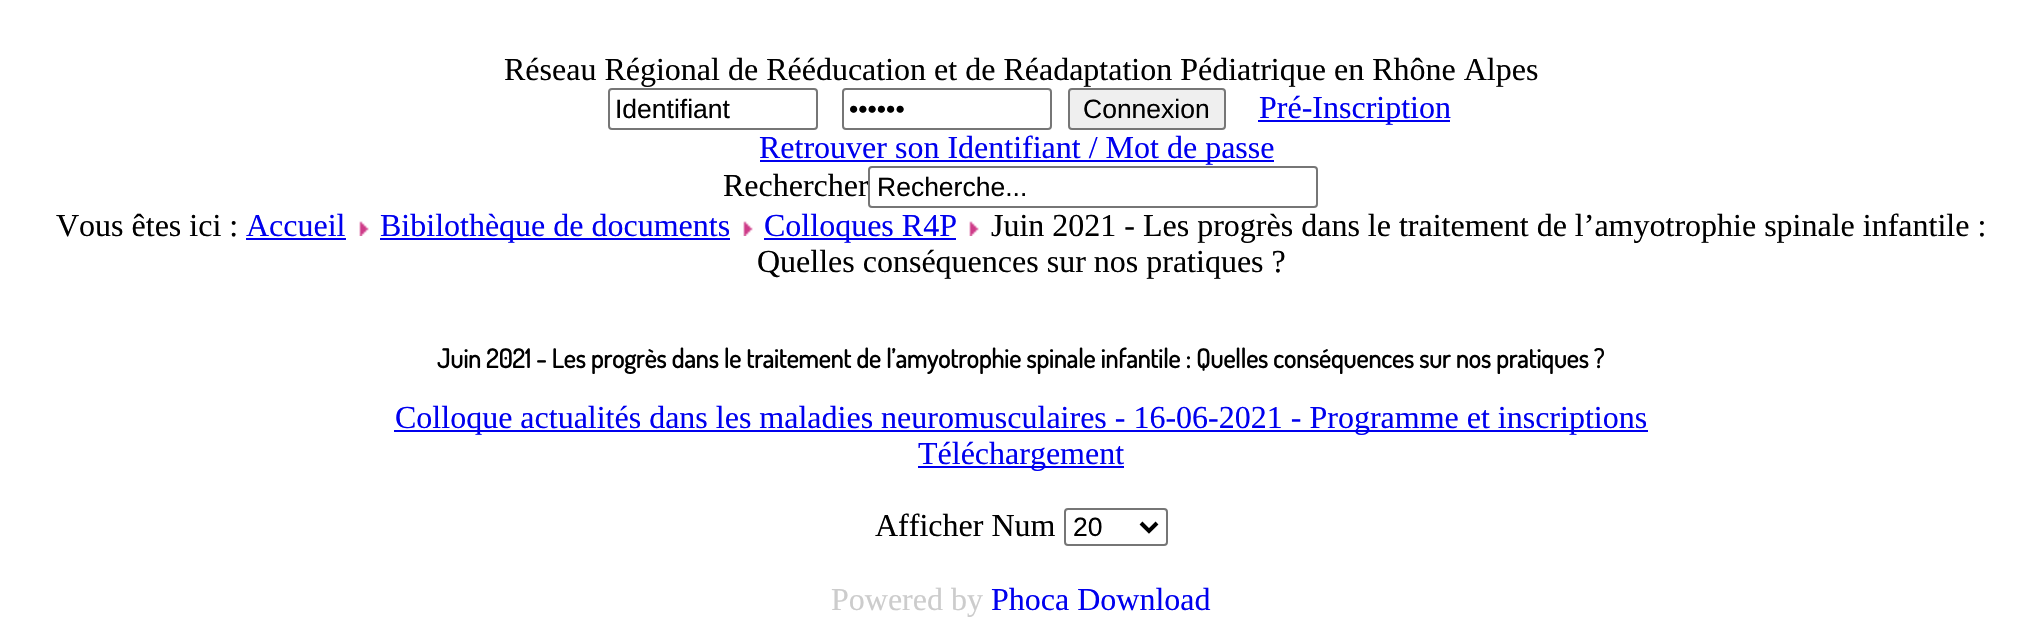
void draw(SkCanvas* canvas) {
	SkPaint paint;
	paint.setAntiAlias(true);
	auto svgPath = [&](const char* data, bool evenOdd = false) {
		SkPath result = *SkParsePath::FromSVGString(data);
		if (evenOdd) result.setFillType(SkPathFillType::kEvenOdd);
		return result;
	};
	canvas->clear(0xffffffff);
	SkFont f1(fontMgr->matchFamilyStyle("Liberation Serif", SkFontStyle::Normal()), 32);
	f1.setSubpixel(true);
	paint.setColor(0xff000000);
	canvas->drawString("Réseau Régional de Rééducation et de Réadaptation Pédiatrique en Rhône Alpes", 504, 80, f1, paint);
	paint.setStroke(true);
	paint.setStrokeWidth(2);
	paint.setColor(0xff767676);
	canvas->drawRoundRect(SkRect::MakeXYWH(609, 89, 208, 40), 3, 3, paint);
	SkFont f2(fontMgr->matchFamilyStyle("Liberation Sans", SkFontStyle::Normal()), 26.5);
	f2.setSubpixel(true);
	paint.setStroke(false);
	paint.setColor(0xff000000);
	canvas->drawString("Identifiant", 615, 118, f2, paint);
	paint.setStroke(true);
	paint.setColor(0xff767676);
	canvas->drawRoundRect(SkRect::MakeXYWH(843, 89, 208, 40), 3, 3, paint);
	paint.setStroke(false);
	paint.setColor(0xff000000);
	canvas->drawString("••••••", 849, 118, f2, paint);
	paint.setColor(0xffefefef);
	canvas->drawRoundRect(SkRect::MakeXYWH(1069, 89, 156, 40), 3, 3, paint);
	paint.setStroke(true);
	paint.setColor(0xff767676);
	canvas->drawRoundRect(SkRect::MakeXYWH(1069, 89, 156, 40), 3, 3, paint);
	paint.setStroke(false);
	paint.setColor(0xff000000);
	canvas->drawString("Connexion", 1083, 118, f2, paint);
	paint.setColor(0xff0000ee);
	canvas->drawRect(SkRect::MakeXYWH(1258, 120, 192, 2), paint);
	canvas->drawString("Pré-Inscription", 1259, 118, f1, paint);
	canvas->drawRect(SkRect::MakeXYWH(760, 160, 514, 2), paint);
	canvas->drawString("Retrouver son Identifiant / Mot de passe", 759, 158, f1, paint);
	paint.setColor(0xff000000);
	canvas->drawString("Rechercher", 723, 196, f1, paint);
	paint.setColor(0xffffffff);
	canvas->drawRoundRect(SkRect::MakeXYWH(869, 167, 448, 40), 3, 3, paint);
	paint.setStroke(true);
	paint.setColor(0xff767676);
	canvas->drawRoundRect(SkRect::MakeXYWH(869, 167, 448, 40), 3, 3, paint);
	paint.setStroke(false);
	paint.setColor(0xff000000);
	canvas->drawString("Recherche...", 877, 196, f2, paint);
	canvas->drawString("Vous êtes ici :", 56, 236, f1, paint);
	paint.setColor(0xff0000ee);
	canvas->drawString("Accueil", 246, 236, f1, paint);
	canvas->drawRect(SkRect::MakeXYWH(246, 238, 100, 2), paint);
	canvas->drawImageRect(SkImages::DeferredFromEncodedData(SkData::MakeFromFileName("img1.png")), SkRect::MakeXYWH(359, 221, 10, 15), SkSamplingOptions());
	canvas->drawRect(SkRect::MakeXYWH(380, 238, 350, 2), paint);
	canvas->drawString("Bibilothèque de documents", 380, 236, f1, paint);
	canvas->drawImageRect(SkImages::DeferredFromEncodedData(SkData::MakeFromFileName("img1.png")), SkRect::MakeXYWH(743, 221, 10, 15), SkSamplingOptions());
	canvas->drawRect(SkRect::MakeXYWH(764, 238, 192, 2), paint);
	canvas->drawString("Colloques R4P", 764, 236, f1, paint);
	canvas->drawImageRect(SkImages::DeferredFromEncodedData(SkData::MakeFromFileName("img1.png")), SkRect::MakeXYWH(969, 221, 10, 15), SkSamplingOptions());
	paint.setColor(0xff000000);
	canvas->drawString("Juin 2021 - Les progrès dans le traitement de l’amyotrophie spinale infantile :", 991, 236, f1, paint);
	canvas->drawString("Quelles conséquences sur nos pratiques ?", 757, 272, f1, paint);
	SkFont f3(fontMgr->matchFamilyStyle("Dosis", SkFontStyle::Bold()), 26);
	f3.setSubpixel(true);
	canvas->drawString("Juin 2021 - Les progrès dans le traitement de l’amyotrophie spinale infantile : Quelles conséquences sur nos pratiques ?", 437, 368, f3, paint);
	paint.setColor(0xff0000ee);
	canvas->drawRect(SkRect::MakeXYWH(394, 430, 1254, 2), paint);
	canvas->drawString("Colloque actualités dans les maladies neuromusculaires - 16-06-2021 - Programme et inscriptions", 395, 428, f1, paint);
	canvas->drawRect(SkRect::MakeXYWH(918, 466, 206, 2), paint);
	canvas->drawString("Téléchargement", 918, 464, f1, paint);
	paint.setColor(0xff000000);
	canvas->drawString("Afficher Num", 875, 536, f1, paint);
	paint.setStroke(true);
	paint.setColor(0xff767676);
	canvas->drawRoundRect(SkRect::MakeXYWH(1065, 509, 102, 36), 3, 3, paint);
	paint.setStrokeWidth(4);
	paint.setColor(0xff000000);
	canvas->drawPath(svgPath("M1141 523L1149 531L1157 523"), paint);
	paint.setStroke(false);
	canvas->drawString("20", 1073, 536, f2, paint);
	paint.setColor(0xffcccccc);
	canvas->drawString("Powered by", 831, 610, f1, paint);
	paint.setColor(0xff0000ee);
	canvas->drawString("Phoca Download", 991, 610, f1, paint);
}
